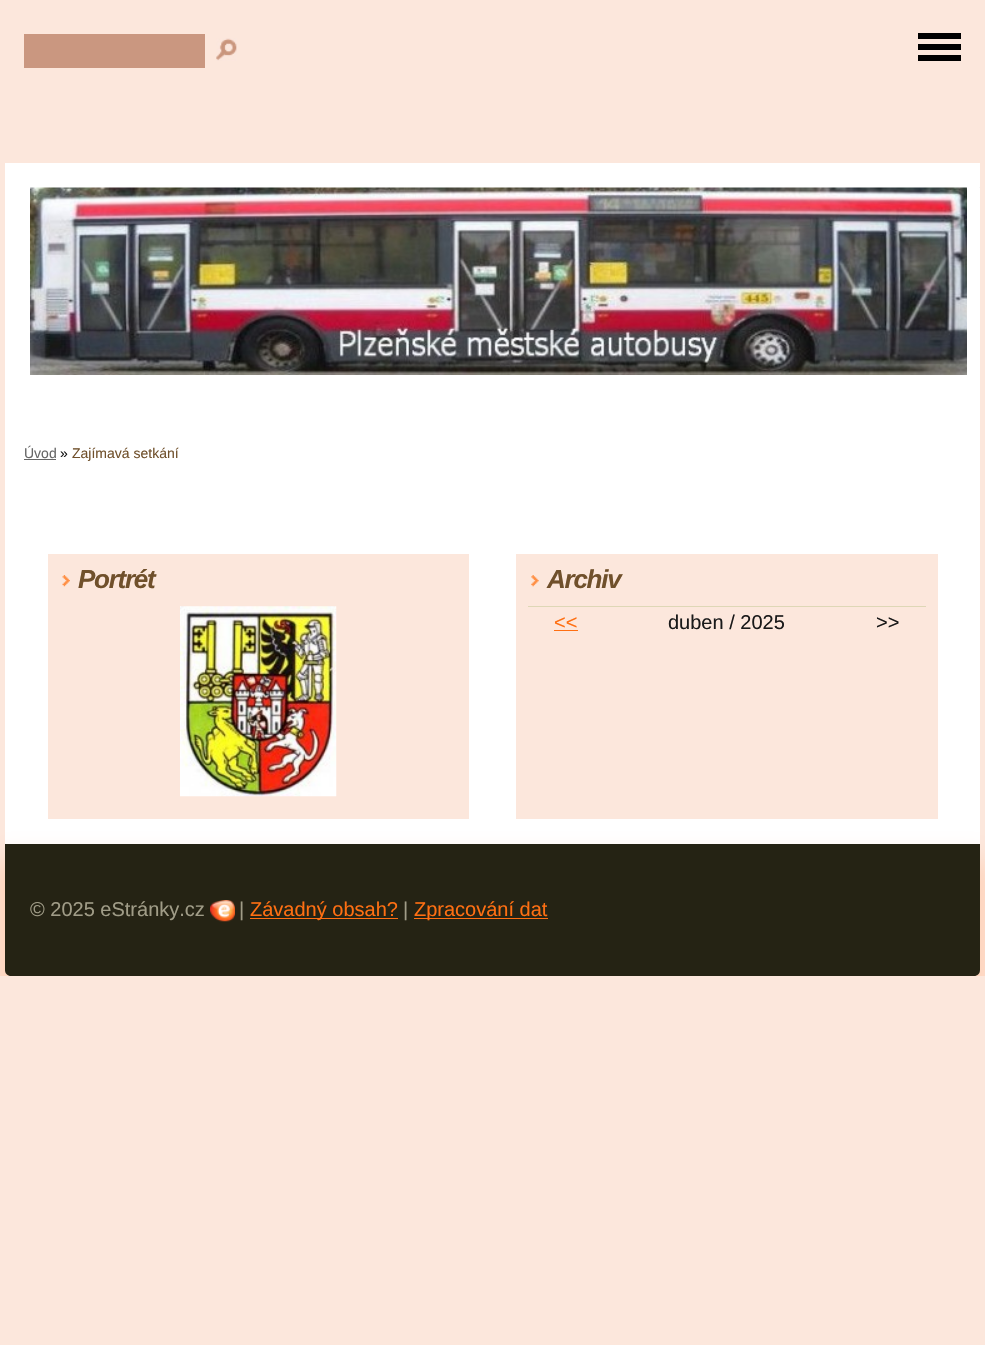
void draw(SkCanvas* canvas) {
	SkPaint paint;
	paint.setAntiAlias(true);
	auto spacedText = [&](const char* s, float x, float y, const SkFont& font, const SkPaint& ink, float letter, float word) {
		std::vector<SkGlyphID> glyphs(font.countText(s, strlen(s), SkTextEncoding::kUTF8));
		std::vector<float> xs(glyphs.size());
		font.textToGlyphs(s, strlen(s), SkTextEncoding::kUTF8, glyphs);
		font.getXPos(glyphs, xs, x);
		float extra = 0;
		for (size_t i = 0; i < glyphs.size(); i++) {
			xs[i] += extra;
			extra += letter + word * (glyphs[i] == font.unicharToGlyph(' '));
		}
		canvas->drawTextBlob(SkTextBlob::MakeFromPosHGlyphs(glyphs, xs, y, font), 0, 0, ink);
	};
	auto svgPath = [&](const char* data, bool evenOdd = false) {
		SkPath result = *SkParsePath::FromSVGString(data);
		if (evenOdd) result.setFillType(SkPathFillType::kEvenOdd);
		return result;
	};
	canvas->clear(0xfffce7dc);
	paint.setColor(0xffffffff);
	canvas->drawRect(SkRect::MakeXYWH(5, 163, 975, 681), paint);
	paint.setColor(0xff000000);
	canvas->drawRect(SkRect::MakeXYWH(918, 33, 43, 6), paint);
	canvas->drawRect(SkRect::MakeXYWH(918, 44, 43, 6), paint);
	canvas->drawRect(SkRect::MakeXYWH(918, 55, 43, 6), paint);
	canvas->drawImageRect(SkImages::DeferredFromEncodedData(SkData::MakeFromFileName("img1.png")), SkRect::MakeXYWH(30, 187, 950, 188), SkSamplingOptions());
	paint.setStroke(true);
	paint.setStrokeWidth(13);
	paint.setColor(0xffffffff);
	canvas->drawRoundRect(SkRect::MakeXYWH(11.5, 169.5, 962, 257), 18.5, 18.5, paint);
	SkFont f1(fontMgr->matchFamilyStyle("Liberation Sans", SkFontStyle::Normal()), 14);
	f1.setSubpixel(true);
	paint.setStroke(false);
	paint.setColor(0xff666666);
	canvas->drawString("Úvod", 24, 458, f1, paint);
	canvas->drawRect(SkRect::MakeXYWH(24, 459, 32, 1), paint);
	paint.setColor(0xff191919);
	canvas->drawString("»", 60, 458, f1, paint);
	paint.setColor(0xff70502b);
	canvas->drawString("Zajímavá setkání", 72, 458, f1, paint);
	paint.setColor(0xffca9780);
	canvas->drawRect(SkRect::MakeXYWH(24, 34, 181, 34), paint);
	canvas->drawImageRect(SkImages::DeferredFromEncodedData(SkData::MakeFromFileName("img2.png")), SkRect::MakeXYWH(216, 38, 21, 23), SkSamplingOptions());
	paint.setColor(0xfffce7dc);
	canvas->drawRect(SkRect::MakeXYWH(48, 554, 421, 265), paint);
	canvas->drawImageRect(SkImages::DeferredFromEncodedData(SkData::MakeFromFileName("img3.png")), SkRect::MakeXYWH(62, 575, 8, 12), SkSamplingOptions());
	SkFont f2(fontMgr->matchFamilyStyle("Liberation Sans", SkFontStyle::BoldItalic()), 26);
	f2.setSubpixel(true);
	paint.setColor(0xff70502b);
	spacedText("Portrét", 78, 588, f2, paint, -1.25, 0);
	canvas->drawImageRect(SkImages::DeferredFromEncodedData(SkData::MakeFromFileName("img4.png")), SkRect::MakeXYWH(180, 606, 157, 191), SkSamplingOptions());
	paint.setColor(0xfffce7dc);
	canvas->drawRect(SkRect::MakeXYWH(516, 554, 422, 265), paint);
	canvas->drawImageRect(SkImages::DeferredFromEncodedData(SkData::MakeFromFileName("img5.png")), SkRect::MakeXYWH(531, 575, 8, 12), SkSamplingOptions());
	paint.setColor(0xff70502b);
	spacedText("Archiv", 547, 588, f2, paint, -1.25, 0);
	SkFont f3(fontMgr->matchFamilyStyle("Liberation Sans", SkFontStyle::Normal()), 20);
	f3.setSubpixel(true);
	paint.setColor(0xffff6f12);
	canvas->drawString("<<", 554, 629, f3, paint);
	canvas->drawRect(SkRect::MakeXYWH(554, 630, 24, 1), paint);
	paint.setColor(0xff191919);
	canvas->drawString("duben / 2025", 668, 629, f3, paint);
	paint.setColor(0xffded7b6);
	canvas->drawRect(SkRect::MakeXYWH(528, 606, 398, 1), paint);
	paint.setColor(0xff191919);
	canvas->drawString(">>", 876, 629, f3, paint);
	canvas->save();
	canvas->clipRect(SkRect::MakeXYWH(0, 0, 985, 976));
	paint.setColor(0xffffd2b9);
	paint.setMaskFilter(SkMaskFilter::MakeBlur(kNormal_SkBlurStyle, 12.5));
	canvas->drawRoundRect(SkRect::MakeXYWH(-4, 860, 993, 150), 15, 15, paint);
	paint.setMaskFilter(nullptr);
	canvas->restore();
	paint.setColor(0xff252314);
	canvas->drawPath(svgPath("M5 844H980V970C980 973.5 977.5 976 974 976H11C7.5 976 5 973.5 5 970Z"), paint);
	paint.setColor(0xffa09c87);
	canvas->drawString("© 2025 eStránky.cz", 30, 916, f3, paint);
	canvas->drawImageRect(SkImages::DeferredFromEncodedData(SkData::MakeFromFileName("img6.png")), SkRect::MakeXYWH(210, 900, 25, 22), SkSamplingOptions());
	canvas->drawString("|", 239, 916, f3, paint);
	paint.setColor(0xffff6f12);
	canvas->drawRect(SkRect::MakeXYWH(250, 918, 148, 1), paint);
	canvas->drawString("Závadný obsah?", 250, 916, f3, paint);
	paint.setColor(0xffa09c87);
	canvas->drawString("|", 403, 916, f3, paint);
	paint.setColor(0xffff6f12);
	canvas->drawRect(SkRect::MakeXYWH(414, 918, 134, 1), paint);
	canvas->drawString("Zpracování dat", 414, 916, f3, paint);
}
